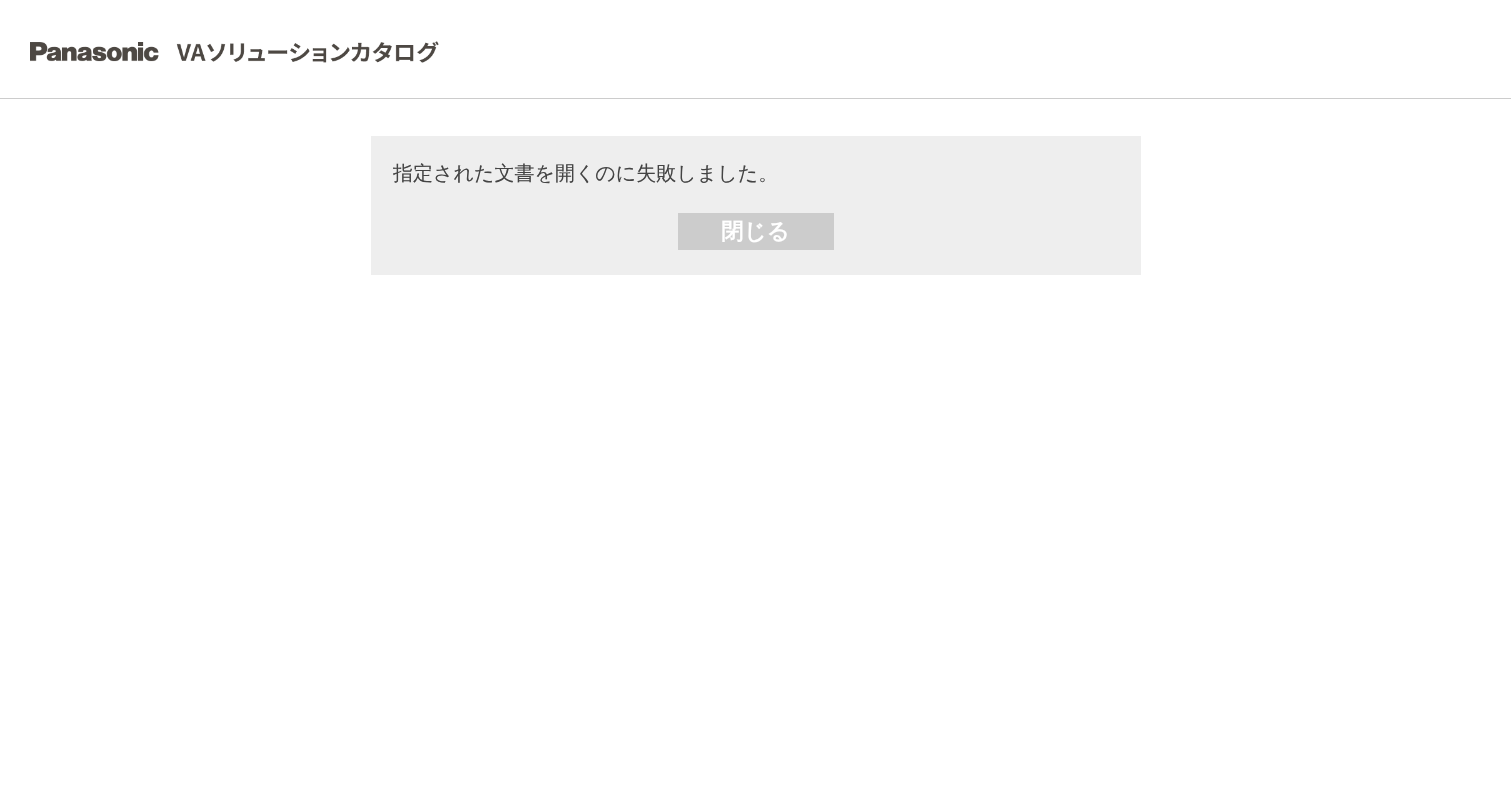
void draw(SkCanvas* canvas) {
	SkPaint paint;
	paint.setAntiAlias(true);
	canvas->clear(0xffffffff);
	paint.setColor(0xffcccccc);
	canvas->drawRect(SkRect::MakeXYWH(0, 98, 1511, 1), paint);
	canvas->drawImageRect(SkImages::DeferredFromEncodedData(SkData::MakeFromFileName("img1.png")), SkRect::MakeXYWH(30, 42, 129, 20), SkSamplingOptions());
	canvas->drawImageRect(SkImages::DeferredFromEncodedData(SkData::MakeFromFileName("img2.png")), SkRect::MakeXYWH(176, 41, 263, 22), SkSamplingOptions());
	paint.setColor(0xffeeeeee);
	canvas->drawRect(SkRect::MakeXYWH(371, 136, 770, 139), paint);
	SkFont f1(fontMgr->matchFamilyStyle("WenQuanYi Zen Hei", SkFontStyle(500, SkFontStyle::kNormal_Width, SkFontStyle::kUpright_Slant)), 20);
	f1.setSubpixel(true);
	paint.setColor(0xff444444);
	canvas->drawString("指定された文書を開くのに失敗しました。", 393, 180, f1, paint);
	paint.setColor(0xffcccccc);
	canvas->drawRect(SkRect::MakeXYWH(678, 213, 156, 37), paint);
	SkFont f2(fontMgr->matchFamilyStyle("WenQuanYi Zen Hei", SkFontStyle::Bold()), 22.5);
	f2.setSubpixel(true);
	paint.setColor(0xffffffff);
	canvas->drawString("閉じる", 721, 239, f2, paint);
}
